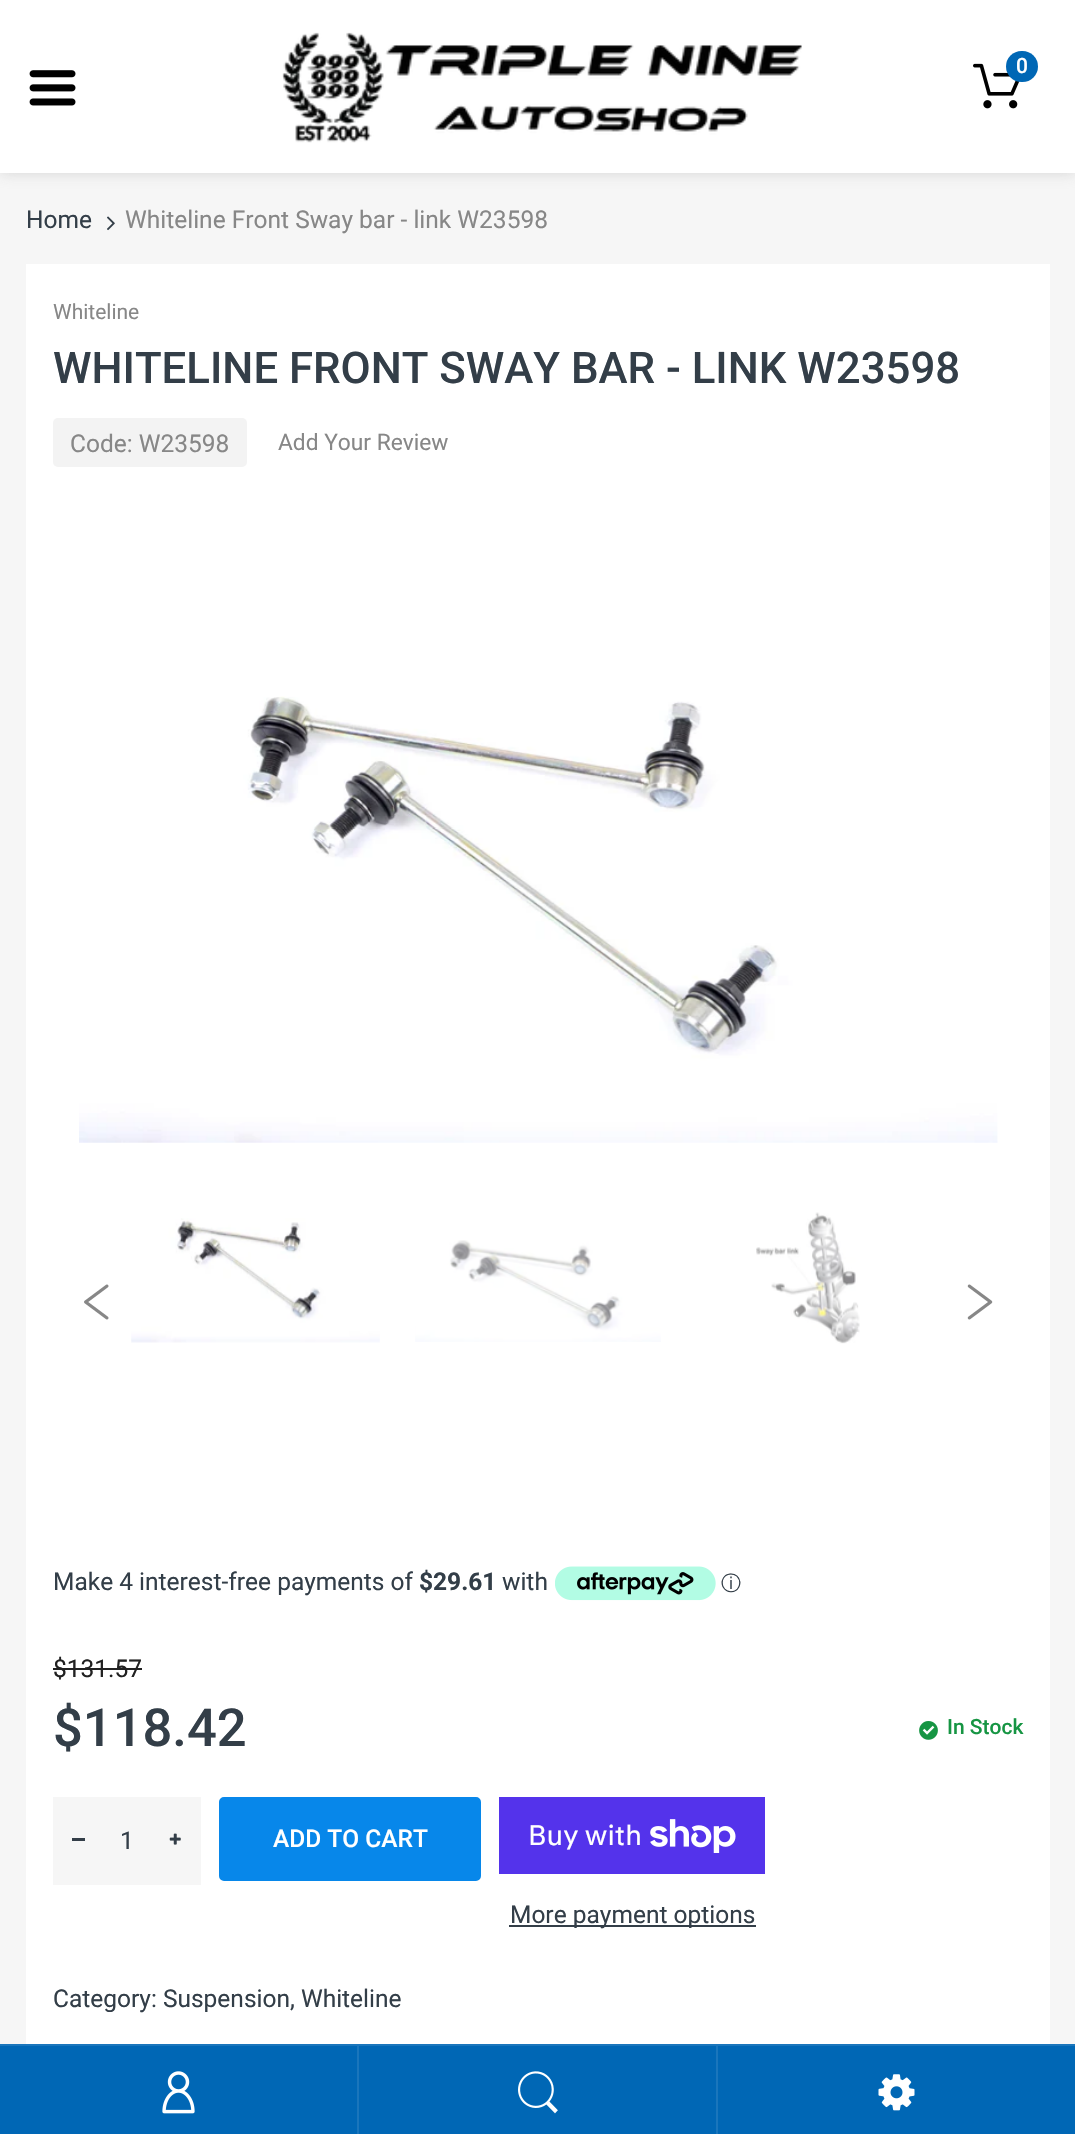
void draw(SkCanvas* canvas) {
	SkPaint paint;
	paint.setAntiAlias(true);
	canvas->clear(0xfff6f6f6);
	paint.setColor(0xbfc9c9c9);
	paint.setMaskFilter(SkMaskFilter::MakeBlur(kNormal_SkBlurStyle, 7));
	canvas->drawRect(SkRect::MakeXYWH(0, 0, 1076, 173), paint);
	paint.setMaskFilter(nullptr);
	paint.setColor(0xffffffff);
	canvas->drawRect(SkRect::MakeXYWH(0, 0, 1075, 173), paint);
	canvas->drawImageRect(SkImages::DeferredFromEncodedData(SkData::MakeFromFileName("img1.png")), SkRect::MakeXYWH(282, 32, 520, 111), SkSamplingOptions());
	canvas->drawImageRect(SkImages::DeferredFromEncodedData(SkData::MakeFromFileName("img2.png")), SkRect::MakeXYWH(973, 63, 47, 46), SkSamplingOptions());
	paint.setColor(0xff0067b5);
	canvas->drawRoundRect(SkRect::MakeXYWH(1006, 51, 32, 31), 15.5, 15.5, paint);
	SkFont f1(fontMgr->matchFamilyStyle("Roboto", SkFontStyle(500, SkFontStyle::kNormal_Width, SkFontStyle::kUpright_Slant)), 21);
	f1.setSubpixel(true);
	paint.setColor(0xffffffff);
	canvas->drawString("0", 1016, 73, f1, paint);
	canvas->drawImageRect(SkImages::DeferredFromEncodedData(SkData::MakeFromFileName("img3.png")), SkRect::MakeXYWH(29, 70, 47, 36), SkSamplingOptions());
	SkFont f2(fontMgr->matchFamilyStyle("Roboto", SkFontStyle::Normal()), 24.5);
	f2.setSubpixel(true);
	paint.setColor(0xff333e48);
	canvas->drawString("Home", 26, 228, f2, paint);
	canvas->drawImageRect(SkImages::DeferredFromEncodedData(SkData::MakeFromFileName("img4.png")), SkRect::MakeXYWH(107, 216, 8, 15), SkSamplingOptions());
	paint.setColor(0xff878787);
	canvas->drawString("Whiteline Front Sway bar - link W23598", 125, 228, f2, paint);
	paint.setColor(0xffffffff);
	canvas->drawRect(SkRect::MakeXYWH(26, 264, 1024, 1780), paint);
	SkFont f3(fontMgr->matchFamilyStyle("Roboto", SkFontStyle::Normal()), 21);
	f3.setSubpixel(true);
	paint.setColor(0xff878787);
	canvas->drawString("Whiteline", 53, 319, f3, paint);
	SkFont f4(fontMgr->matchFamilyStyle("Roboto", SkFontStyle(500, SkFontStyle::kNormal_Width, SkFontStyle::kUpright_Slant)), 43.75);
	f4.setSubpixel(true);
	paint.setColor(0xff333e48);
	canvas->drawString("WHITELINE FRONT SWAY BAR - LINK W23598", 53, 383, f4, paint);
	paint.setColor(0xfff3f3f3);
	canvas->drawRoundRect(SkRect::MakeXYWH(53, 418, 194, 49), 5, 5, paint);
	paint.setColor(0xff878787);
	canvas->drawString("Code: W23598", 70, 452, f2, paint);
	SkFont f5(fontMgr->matchFamilyStyle("Roboto", SkFontStyle::Normal()), 22.75);
	f5.setSubpixel(true);
	canvas->drawString("Add Your Review", 278, 450, f5, paint);
	canvas->drawImageRect(SkImages::DeferredFromEncodedData(SkData::MakeFromFileName("img5.png")), SkRect::MakeXYWH(79, 696, 919, 447), SkSamplingOptions());
	canvas->drawImageRect(SkImages::DeferredFromEncodedData(SkData::MakeFromFileName("img6.png")), SkRect::MakeXYWH(131, 1218, 249, 125), SkSamplingOptions());
	canvas->drawImageRect(SkImages::DeferredFromEncodedData(SkData::MakeFromFileName("img7.png")), SkRect::MakeXYWH(415, 1240, 246, 102), SkSamplingOptions());
	canvas->drawImageRect(SkImages::DeferredFromEncodedData(SkData::MakeFromFileName("img8.png")), SkRect::MakeXYWH(756, 1212, 104, 132), SkSamplingOptions());
	canvas->drawImageRect(SkImages::DeferredFromEncodedData(SkData::MakeFromFileName("img9.png")), SkRect::MakeXYWH(84, 1284, 25, 36), SkSamplingOptions());
	canvas->drawImageRect(SkImages::DeferredFromEncodedData(SkData::MakeFromFileName("img10.png")), SkRect::MakeXYWH(967, 1284, 26, 36), SkSamplingOptions());
	paint.setColor(0xff333e48);
	canvas->drawString("Make 4 interest-free payments of", 53, 1590, f2, paint);
	SkFont f6(fontMgr->matchFamilyStyle("Roboto", SkFontStyle::Bold()), 24.5);
	f6.setSubpixel(true);
	canvas->drawString("$29.61", 419, 1590, f6, paint);
	canvas->drawString("with", 502, 1590, f2, paint);
	canvas->drawImageRect(SkImages::DeferredFromEncodedData(SkData::MakeFromFileName("img11.png")), SkRect::MakeXYWH(555, 1566, 161, 35), SkSamplingOptions());
	SkFont f7(fontMgr->matchFamilyStyle("WenQuanYi Zen Hei", SkFontStyle(500, SkFontStyle::kNormal_Width, SkFontStyle::kUpright_Slant)), 20);
	f7.setSubpixel(true);
	canvas->drawString("ⓘ", 721, 1590, f7, paint);
	paint.setColor(0xff212121);
	canvas->drawString("$131.57", 53, 1677, f2, paint);
	canvas->drawRect(SkRect::MakeXYWH(53, 1668, 89, 2), paint);
	SkFont f8(fontMgr->matchFamilyStyle("Roboto", SkFontStyle(500, SkFontStyle::kNormal_Width, SkFontStyle::kUpright_Slant)), 52.5);
	f8.setSubpixel(true);
	paint.setColor(0xff333e48);
	canvas->drawString("$118.42", 53, 1746, f8, paint);
	canvas->drawImageRect(SkImages::DeferredFromEncodedData(SkData::MakeFromFileName("img12.png")), SkRect::MakeXYWH(919, 1721, 19, 19), SkSamplingOptions());
	paint.setColor(0xff169543);
	canvas->drawString("In Stock", 947, 1734, f1, paint);
	paint.setColor(0xfff6f6f6);
	canvas->drawRect(SkRect::MakeXYWH(53, 1797, 148, 88), paint);
	paint.setColor(0xff333e48);
	canvas->drawString("1", 120, 1849, f2, paint);
	canvas->drawRect(SkRect::MakeXYWH(72, 1838, 13, 3), paint);
	canvas->drawImageRect(SkImages::DeferredFromEncodedData(SkData::MakeFromFileName("img13.png")), SkRect::MakeXYWH(169, 1833, 12, 12), SkSamplingOptions());
	paint.setColor(0xff0787ea);
	canvas->drawRoundRect(SkRect::MakeXYWH(220, 1798, 260, 82), 4, 4, paint);
	paint.setStroke(true);
	paint.setStrokeWidth(2);
	canvas->drawRoundRect(SkRect::MakeXYWH(220, 1798, 260, 82), 4, 4, paint);
	SkFont f9(fontMgr->matchFamilyStyle("Roboto", SkFontStyle(500, SkFontStyle::kNormal_Width, SkFontStyle::kUpright_Slant)), 24.5);
	f9.setSubpixel(true);
	paint.setStroke(false);
	paint.setColor(0xffffffff);
	canvas->drawString("ADD TO CART", 273, 1847, f9, paint);
	paint.setColor(0xff5433eb);
	canvas->drawRect(SkRect::MakeXYWH(499, 1797, 266, 77), paint);
	SkFont f10(fontMgr->matchFamilyStyle("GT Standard", SkFontStyle::Normal()), 28);
	f10.setSubpixel(true);
	paint.setColor(0xffffffff);
	canvas->drawString("Buy with", 528, 1845, f10, paint);
	canvas->drawImageRect(SkImages::DeferredFromEncodedData(SkData::MakeFromFileName("img14.png")), SkRect::MakeXYWH(650, 1819, 86, 34), SkSamplingOptions());
	paint.setColor(0xff333e48);
	canvas->drawRect(SkRect::MakeXYWH(509, 1925, 247, 2), paint);
	canvas->drawString("More payment options", 510, 1923, f2, paint);
	canvas->drawString("Category: Suspension, Whiteline", 53, 2007, f2, paint);
	paint.setColor(0xff0067b5);
	canvas->drawRect(SkRect::MakeXYWH(0, 2046, 1075, 88), paint);
	paint.setColor(0xff1a76bc);
	canvas->drawRect(SkRect::MakeXYWH(0, 2044, 1075, 2), paint);
	canvas->drawRect(SkRect::MakeXYWH(357, 2046, 2, 88), paint);
	canvas->drawImageRect(SkImages::DeferredFromEncodedData(SkData::MakeFromFileName("img15.png")), SkRect::MakeXYWH(162, 2071, 33, 43), SkSamplingOptions());
	canvas->drawRect(SkRect::MakeXYWH(716, 2046, 2, 88), paint);
	canvas->drawImageRect(SkImages::DeferredFromEncodedData(SkData::MakeFromFileName("img16.png")), SkRect::MakeXYWH(518, 2071, 40, 43), SkSamplingOptions());
	canvas->drawImageRect(SkImages::DeferredFromEncodedData(SkData::MakeFromFileName("img17.png")), SkRect::MakeXYWH(878, 2074, 37, 37), SkSamplingOptions());
}
